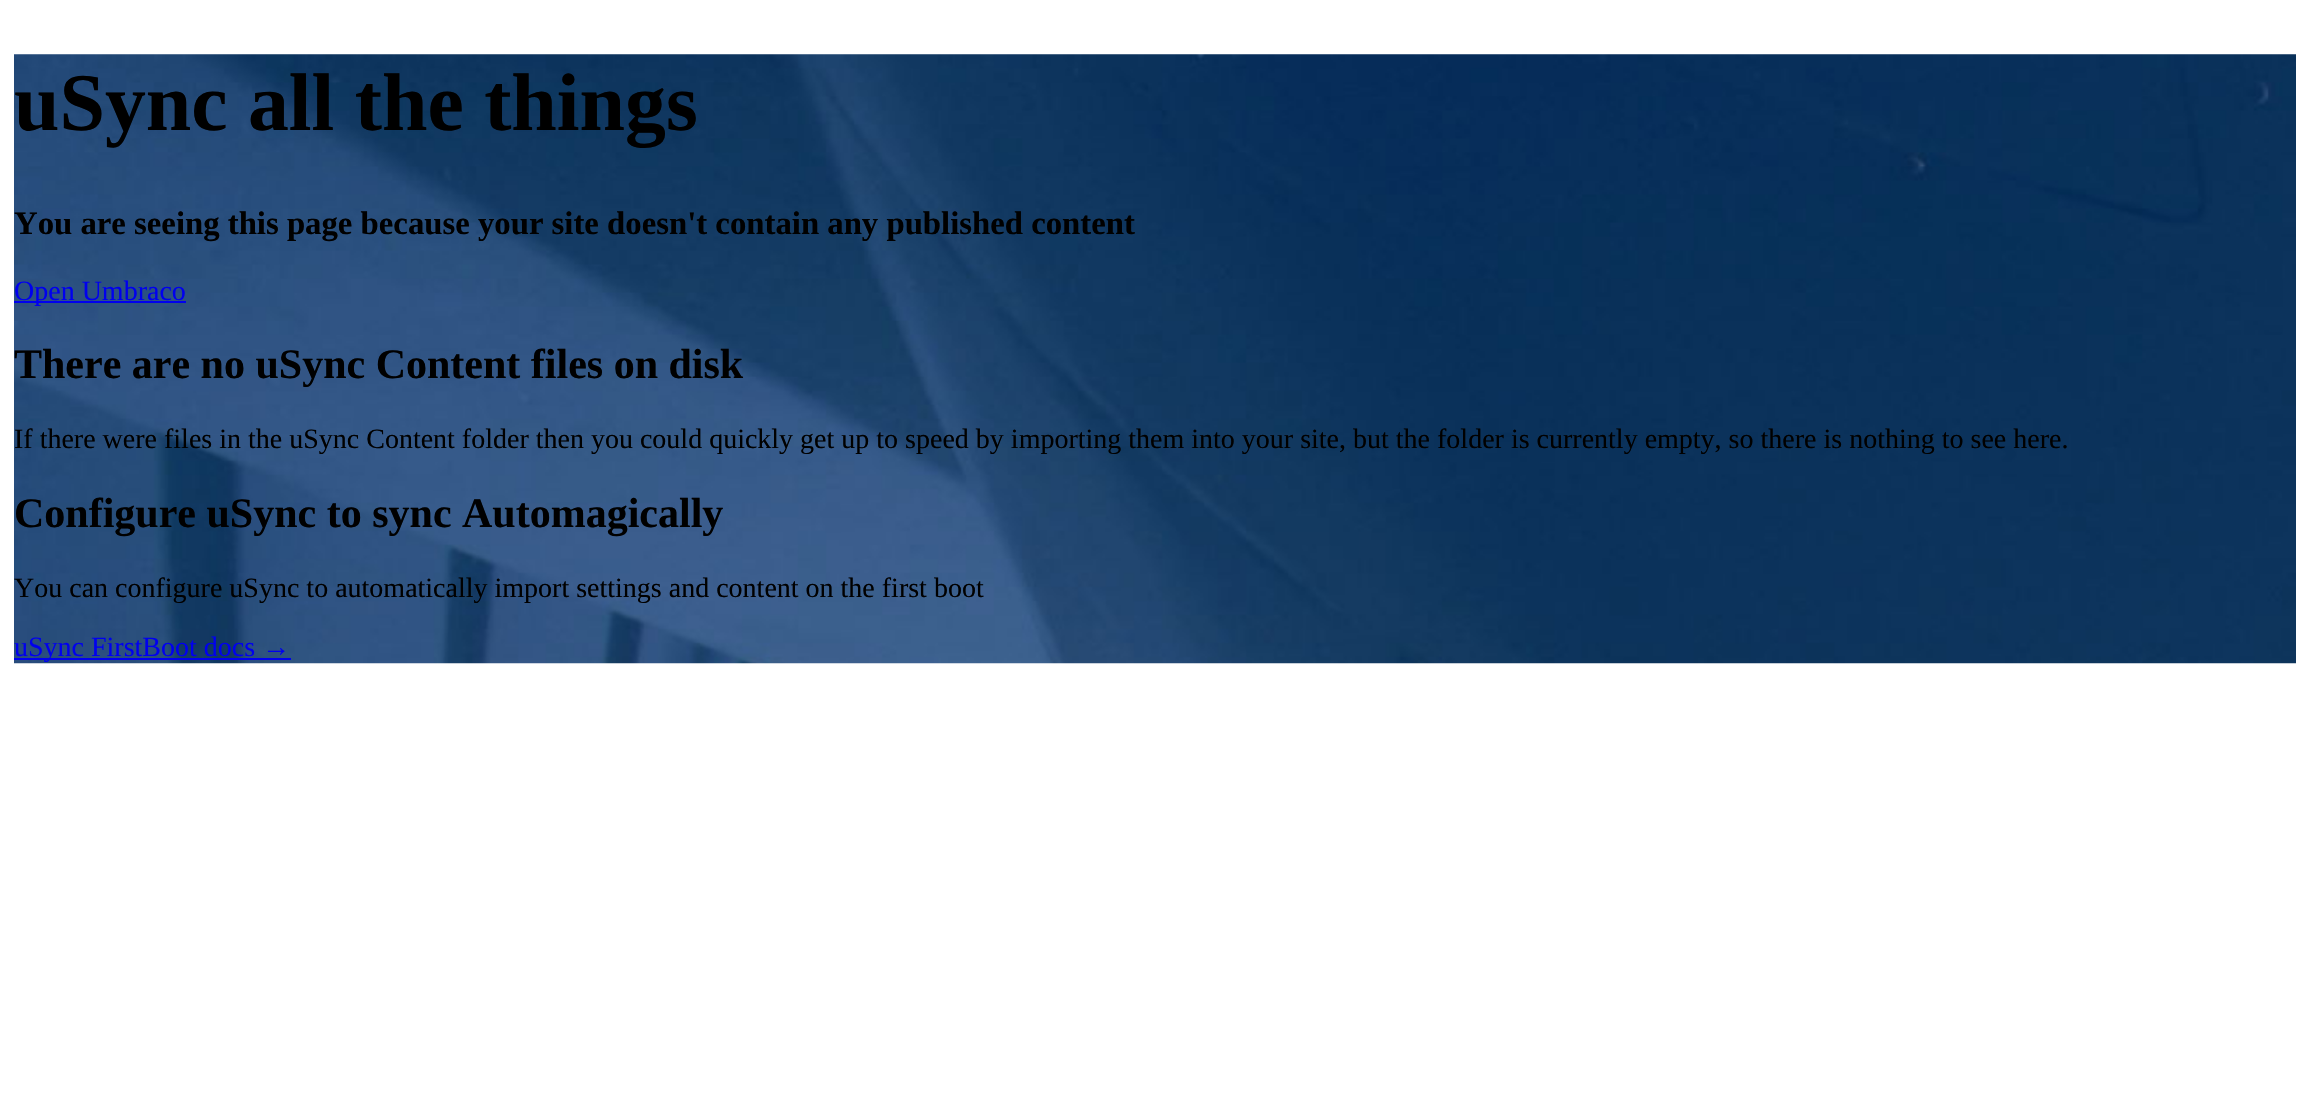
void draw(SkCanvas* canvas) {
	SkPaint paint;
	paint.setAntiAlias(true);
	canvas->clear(0xffffffff);
	canvas->drawImageRect(SkImages::DeferredFromEncodedData(SkData::MakeFromFileName("img1.png")), SkRect::MakeXYWH(14, 54, 2282, 610), SkSamplingOptions());
	SkFont f1(fontMgr->matchFamilyStyle("Liberation Serif", SkFontStyle::Bold()), 81.75);
	f1.setSubpixel(true);
	paint.setColor(0xff000000);
	canvas->drawString("uSync all the things", 14, 130, f1, paint);
	SkFont f2(fontMgr->matchFamilyStyle("Liberation Serif", SkFontStyle::Bold()), 32.75);
	f2.setSubpixel(true);
	canvas->drawString("You are seeing this page because your site doesn't contain any published content", 14, 234, f2, paint);
	paint.setColor(0xff0000ee);
	canvas->drawRect(SkRect::MakeXYWH(14, 301, 172, 2), paint);
	SkFont f3(fontMgr->matchFamilyStyle("Liberation Serif", SkFontStyle::Normal()), 28);
	f3.setSubpixel(true);
	canvas->drawString("Open Umbraco", 14, 300, f3, paint);
	SkFont f4(fontMgr->matchFamilyStyle("Liberation Serif", SkFontStyle::Bold()), 42);
	f4.setSubpixel(true);
	paint.setColor(0xff000000);
	canvas->drawString("There are no uSync Content files on disk", 14, 378, f4, paint);
	canvas->drawString("If there were files in the uSync Content folder then you could quickly get up to speed by importing them into your site, but the folder is currently empty, so there is nothing to see here.", 14, 448, f3, paint);
	canvas->drawString("Configure uSync to sync Automagically", 14, 527, f4, paint);
	canvas->drawString("You can configure uSync to automatically import settings and content on the first boot", 14, 597, f3, paint);
	paint.setColor(0xff0000ee);
	canvas->drawRect(SkRect::MakeXYWH(14, 658, 277, 2), paint);
	canvas->drawString("uSync FirstBoot docs →", 14, 656, f3, paint);
}
